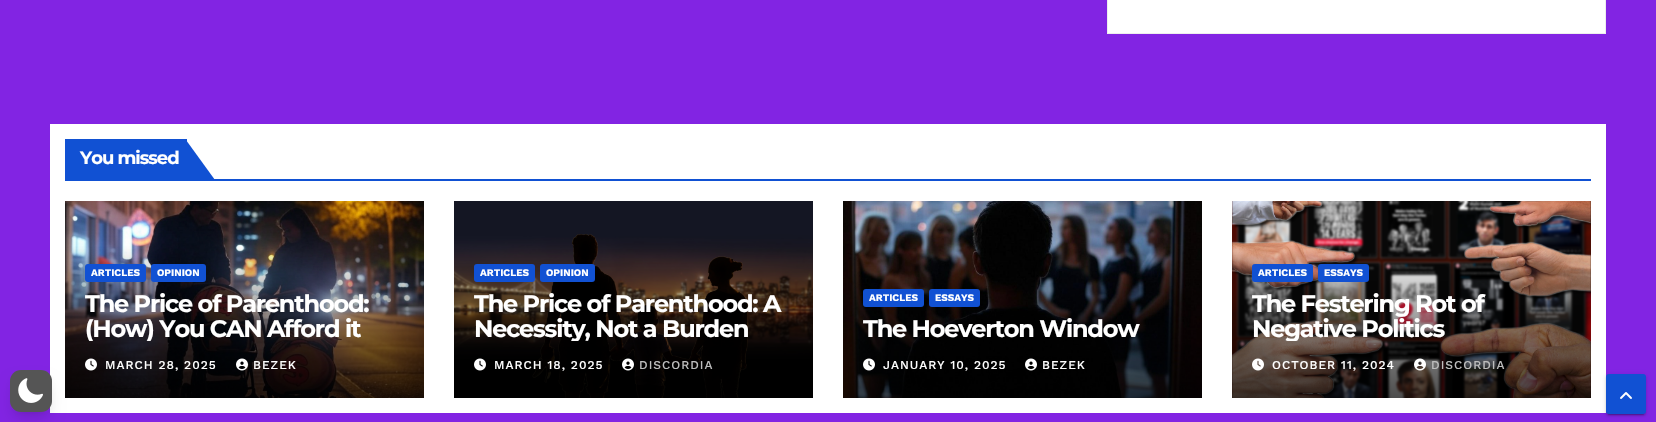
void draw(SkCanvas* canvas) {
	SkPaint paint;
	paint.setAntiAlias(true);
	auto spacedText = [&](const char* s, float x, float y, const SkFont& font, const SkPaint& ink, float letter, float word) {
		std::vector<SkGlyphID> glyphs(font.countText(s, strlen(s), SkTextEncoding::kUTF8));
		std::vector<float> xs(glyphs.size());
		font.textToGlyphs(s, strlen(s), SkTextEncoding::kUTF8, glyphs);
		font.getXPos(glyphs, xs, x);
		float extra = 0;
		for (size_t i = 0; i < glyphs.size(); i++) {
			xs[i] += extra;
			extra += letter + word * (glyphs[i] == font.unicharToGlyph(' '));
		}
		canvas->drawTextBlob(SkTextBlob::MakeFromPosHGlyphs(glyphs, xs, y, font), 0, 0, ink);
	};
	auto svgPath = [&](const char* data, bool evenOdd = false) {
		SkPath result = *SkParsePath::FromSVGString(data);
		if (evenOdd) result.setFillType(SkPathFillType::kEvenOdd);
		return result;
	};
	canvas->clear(0xff8224e3);
	paint.setColor(0xffffffff);
	canvas->drawRect(SkRect::MakeXYWH(1107.5, -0.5, 498, 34), paint);
	paint.setStroke(true);
	paint.setStrokeWidth(1);
	paint.setColor(0xffeeeeee);
	canvas->drawRect(SkRect::MakeXYWH(1107.5, -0.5, 498, 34), paint);
	paint.setStroke(false);
	paint.setColor(0xffffffff);
	canvas->drawRect(SkRect::MakeXYWH(50, 124, 1556, 289), paint);
	paint.setColor(0xff1151d3);
	canvas->drawRect(SkRect::MakeXYWH(65, 179, 1526, 2), paint);
	canvas->drawRect(SkRect::MakeXYWH(65, 139, 122, 40), paint);
	SkFont f1(fontMgr->matchFamilyStyle("Montserrat", SkFontStyle::Bold()), 18);
	f1.setSubpixel(true);
	paint.setColor(0xffffffff);
	spacedText("You missed", 80, 164, f1, paint, -1, 0);
	paint.setColor(0xff1151d3);
	canvas->drawPath(svgPath("M215 180H186V140Z"), paint);
	canvas->drawImageRect(SkImages::DeferredFromEncodedData(SkData::MakeFromFileName("img1.png")), SkRect::MakeXYWH(65, 201, 359, 197), SkSamplingOptions());
	canvas->drawRoundRect(SkRect::MakeXYWH(85, 264, 61, 18), 3, 3, paint);
	SkFont f2(fontMgr->matchFamilyStyle("Work Sans", SkFontStyle::Bold()), 10);
	f2.setSubpixel(true);
	paint.setColor(0xffffffff);
	canvas->drawString("ARTICLES", 91, 276, f2, paint);
	paint.setColor(0xff1151d3);
	canvas->drawRoundRect(SkRect::MakeXYWH(151, 264, 55, 18), 3, 3, paint);
	paint.setColor(0xffffffff);
	canvas->drawString("OPINION", 157, 276, f2, paint);
	SkFont f3(fontMgr->matchFamilyStyle("Montserrat", SkFontStyle::Bold()), 24);
	f3.setSubpixel(true);
	spacedText("The Price of Parenthood:", 85, 312, f3, paint, -1.2, 0);
	canvas->save();
	canvas->clipRect(SkRect::MakeXYWH(85, 291, 319, 50));
	spacedText("(How) You CAN Afford it", 85, 337, f3, paint, -1.2, 0);
	canvas->restore();
	canvas->drawImageRect(SkImages::DeferredFromEncodedData(SkData::MakeFromFileName("img2.png")), SkRect::MakeXYWH(85, 358, 12, 13), SkSamplingOptions());
	SkFont f4(fontMgr->matchFamilyStyle("Work Sans", SkFontStyle(500, SkFontStyle::kNormal_Width, SkFontStyle::kUpright_Slant)), 12);
	f4.setSubpixel(true);
	spacedText("MARCH 28, 2025", 105, 369, f4, paint, 1, 0);
	canvas->drawImageRect(SkImages::DeferredFromEncodedData(SkData::MakeFromFileName("img3.png")), SkRect::MakeXYWH(236, 358, 12, 13), SkSamplingOptions());
	spacedText("BEZEK", 253, 369, f4, paint, 1, 0);
	canvas->drawImageRect(SkImages::DeferredFromEncodedData(SkData::MakeFromFileName("img4.png")), SkRect::MakeXYWH(454, 201, 359, 197), SkSamplingOptions());
	paint.setColor(0xff1151d3);
	canvas->drawRoundRect(SkRect::MakeXYWH(474, 264, 61, 18), 3, 3, paint);
	paint.setColor(0xffffffff);
	canvas->drawString("ARTICLES", 480, 276, f2, paint);
	paint.setColor(0xff1151d3);
	canvas->drawRoundRect(SkRect::MakeXYWH(540, 264, 55, 18), 3, 3, paint);
	paint.setColor(0xffffffff);
	canvas->drawString("OPINION", 546, 276, f2, paint);
	spacedText("The Price of Parenthood: A", 474, 312, f3, paint, -1.2, 0);
	canvas->save();
	canvas->clipRect(SkRect::MakeXYWH(474, 291, 319, 50));
	spacedText("Necessity, Not a Burden", 474, 337, f3, paint, -1.2, 0);
	canvas->restore();
	canvas->drawImageRect(SkImages::DeferredFromEncodedData(SkData::MakeFromFileName("img5.png")), SkRect::MakeXYWH(474, 358, 12, 13), SkSamplingOptions());
	spacedText("MARCH 18, 2025", 494, 369, f4, paint, 1, 0);
	canvas->drawImageRect(SkImages::DeferredFromEncodedData(SkData::MakeFromFileName("img6.png")), SkRect::MakeXYWH(622, 358, 12, 13), SkSamplingOptions());
	paint.setColor(0xffbdbdbd);
	spacedText("DISCORDIA", 639, 369, f4, paint, 1, 0);
	canvas->drawImageRect(SkImages::DeferredFromEncodedData(SkData::MakeFromFileName("img7.png")), SkRect::MakeXYWH(843, 201, 359, 197), SkSamplingOptions());
	paint.setColor(0xff1151d3);
	canvas->drawRoundRect(SkRect::MakeXYWH(863, 289, 61, 18), 3, 3, paint);
	paint.setColor(0xffffffff);
	canvas->drawString("ARTICLES", 869, 301, f2, paint);
	paint.setColor(0xff1151d3);
	canvas->drawRoundRect(SkRect::MakeXYWH(929, 289, 51, 18), 3, 3, paint);
	paint.setColor(0xffffffff);
	canvas->drawString("ESSAYS", 935, 301, f2, paint);
	spacedText("The Hoeverton Window", 863, 337, f3, paint, -1.2, 0);
	canvas->drawImageRect(SkImages::DeferredFromEncodedData(SkData::MakeFromFileName("img8.png")), SkRect::MakeXYWH(863, 358, 12, 13), SkSamplingOptions());
	spacedText("JANUARY 10, 2025", 883, 369, f4, paint, 1, 0);
	canvas->drawImageRect(SkImages::DeferredFromEncodedData(SkData::MakeFromFileName("img9.png")), SkRect::MakeXYWH(1025, 358, 12, 13), SkSamplingOptions());
	spacedText("BEZEK", 1042, 369, f4, paint, 1, 0);
	canvas->drawImageRect(SkImages::DeferredFromEncodedData(SkData::MakeFromFileName("img10.png")), SkRect::MakeXYWH(1232, 201, 359, 197), SkSamplingOptions());
	paint.setColor(0xff1151d3);
	canvas->drawRoundRect(SkRect::MakeXYWH(1252, 264, 61, 18), 3, 3, paint);
	paint.setColor(0xffffffff);
	canvas->drawString("ARTICLES", 1258, 276, f2, paint);
	paint.setColor(0xff1151d3);
	canvas->drawRoundRect(SkRect::MakeXYWH(1318, 264, 51, 18), 3, 3, paint);
	paint.setColor(0xffffffff);
	canvas->drawString("ESSAYS", 1324, 276, f2, paint);
	spacedText("The Festering Rot of", 1252, 312, f3, paint, -1.2, 0);
	canvas->save();
	canvas->clipRect(SkRect::MakeXYWH(1252, 291, 319, 50));
	spacedText("Negative Politics", 1252, 337, f3, paint, -1.2, 0);
	canvas->restore();
	canvas->drawImageRect(SkImages::DeferredFromEncodedData(SkData::MakeFromFileName("img11.png")), SkRect::MakeXYWH(1252, 358, 12, 13), SkSamplingOptions());
	spacedText("OCTOBER 11, 2024", 1272, 369, f4, paint, 1, 0);
	canvas->drawImageRect(SkImages::DeferredFromEncodedData(SkData::MakeFromFileName("img12.png")), SkRect::MakeXYWH(1414, 358, 12, 13), SkSamplingOptions());
	paint.setColor(0xffbdbdbd);
	spacedText("DISCORDIA", 1431, 369, f4, paint, 1, 0);
	paint.setColor(0x1a000000);
	paint.setMaskFilter(SkMaskFilter::MakeBlur(kNormal_SkBlurStyle, 3));
	canvas->drawRoundRect(SkRect::MakeXYWH(14, 378, 34, 34), 7, 7, paint);
	paint.setMaskFilter(nullptr);
	paint.setMaskFilter(SkMaskFilter::MakeBlur(kNormal_SkBlurStyle, 7.5));
	canvas->drawRoundRect(SkRect::MakeXYWH(13, 383, 36, 36), 8, 8, paint);
	paint.setMaskFilter(nullptr);
	paint.setColor(0xff555555);
	canvas->drawRoundRect(SkRect::MakeXYWH(10, 370, 42, 42), 11, 11, paint);
	canvas->drawImageRect(SkImages::DeferredFromEncodedData(SkData::MakeFromFileName("img13.png")), SkRect::MakeXYWH(18, 378, 25, 25), SkSamplingOptions());
	paint.setColor(0x1f000000);
	paint.setMaskFilter(SkMaskFilter::MakeBlur(kNormal_SkBlurStyle, 2.5));
	canvas->drawRoundRect(SkRect::MakeXYWH(1606, 375, 40, 40), 3, 3, paint);
	paint.setMaskFilter(nullptr);
	paint.setColor(0x33000000);
	paint.setMaskFilter(SkMaskFilter::MakeBlur(kNormal_SkBlurStyle, 0.5));
	canvas->drawRoundRect(SkRect::MakeXYWH(1608, 379, 36, 36), 1, 1, paint);
	paint.setMaskFilter(nullptr);
	paint.setColor(0x24000000);
	paint.setMaskFilter(SkMaskFilter::MakeBlur(kNormal_SkBlurStyle, 1));
	canvas->drawRoundRect(SkRect::MakeXYWH(1606, 376, 40, 40), 3, 3, paint);
	paint.setMaskFilter(nullptr);
	paint.setColor(0xff1151d3);
	canvas->drawRoundRect(SkRect::MakeXYWH(1607, 375, 38, 38), 2, 2, paint);
	paint.setStroke(true);
	paint.setStrokeWidth(2);
	canvas->drawRoundRect(SkRect::MakeXYWH(1607, 375, 38, 38), 2, 2, paint);
	canvas->drawImageRect(SkImages::DeferredFromEncodedData(SkData::MakeFromFileName("img14.png")), SkRect::MakeXYWH(1620, 392, 12, 7), SkSamplingOptions());
}
